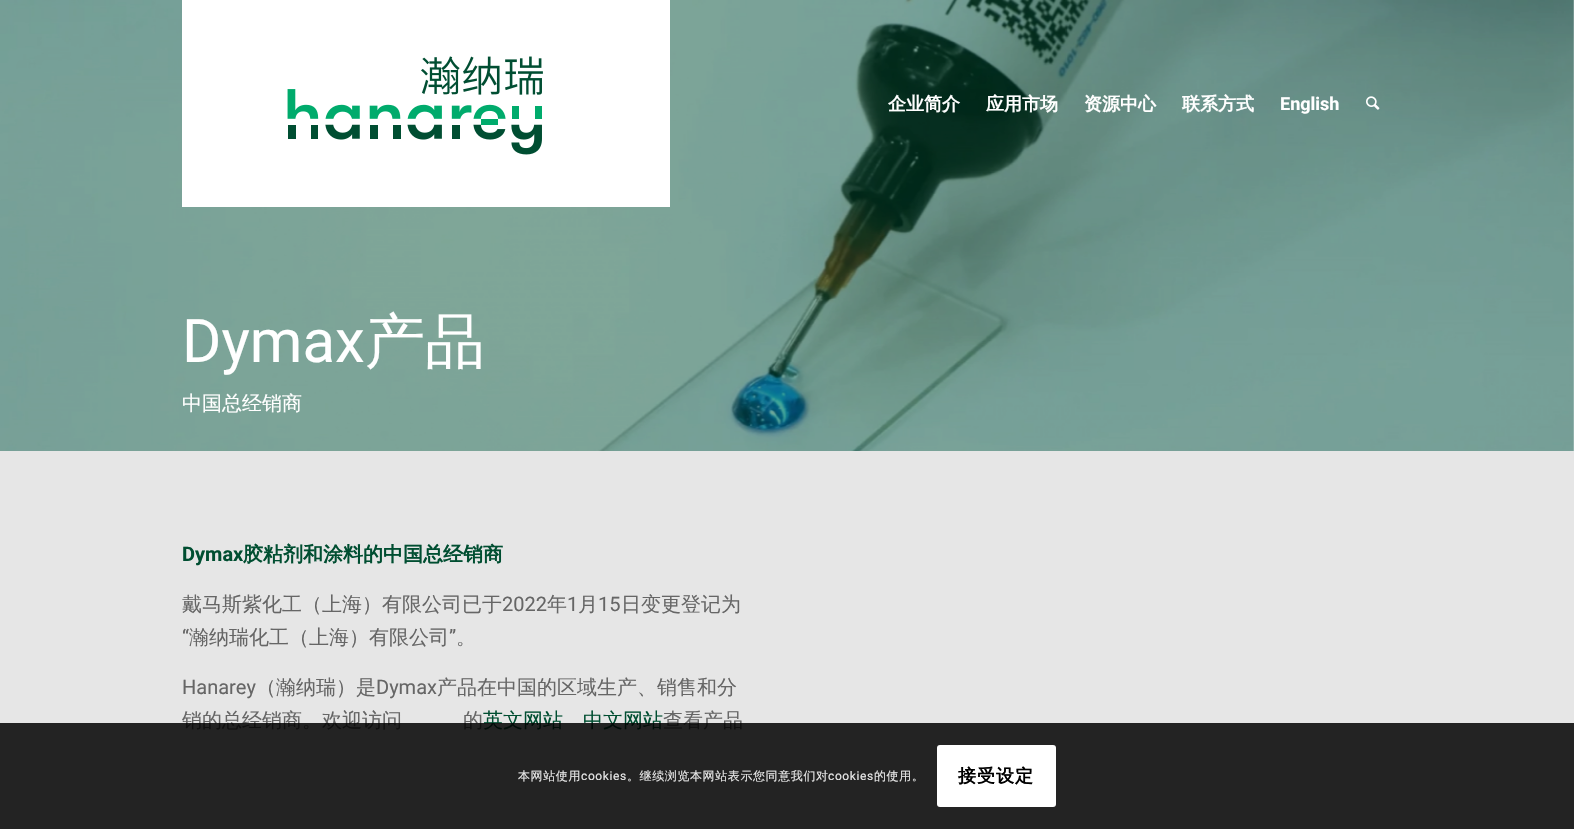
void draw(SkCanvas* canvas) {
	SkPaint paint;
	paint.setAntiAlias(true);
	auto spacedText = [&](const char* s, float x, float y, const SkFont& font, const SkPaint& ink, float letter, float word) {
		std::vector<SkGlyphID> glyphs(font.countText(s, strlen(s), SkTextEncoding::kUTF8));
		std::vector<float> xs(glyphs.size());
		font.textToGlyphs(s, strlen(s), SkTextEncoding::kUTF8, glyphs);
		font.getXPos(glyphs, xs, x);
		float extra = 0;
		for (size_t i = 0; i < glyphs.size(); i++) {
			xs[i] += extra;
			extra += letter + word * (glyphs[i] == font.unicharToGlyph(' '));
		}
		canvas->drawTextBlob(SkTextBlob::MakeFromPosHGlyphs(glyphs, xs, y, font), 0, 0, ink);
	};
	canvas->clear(0xffffffff);
	canvas->drawImageRect(SkImages::DeferredFromEncodedData(SkData::MakeFromFileName("img3.png")), SkRect::MakeXYWH(0, 0, 1574, 451), SkSamplingOptions());
	canvas->drawImageRect(SkImages::DeferredFromEncodedData(SkData::MakeFromFileName("img1.png")), SkRect::MakeXYWH(182, 0, 488, 207), SkSamplingOptions());
	SkFont f1(fontMgr->matchFamilyStyle("WenQuanYi Zen Hei", SkFontStyle::Bold()), 18);
	f1.setSubpixel(true);
	paint.setColor(0xffffffff);
	canvas->drawString("企业简介", 888, 110, f1, paint);
	canvas->drawString("应用市场", 986, 110, f1, paint);
	canvas->drawString("资源中心", 1084, 110, f1, paint);
	canvas->drawString("联系方式", 1182, 110, f1, paint);
	SkFont f2(fontMgr->matchFamilyStyle("Roboto", SkFontStyle::Bold()), 18);
	f2.setSubpixel(true);
	canvas->drawString("English", 1280, 110, f2, paint);
	canvas->drawImageRect(SkImages::DeferredFromEncodedData(SkData::MakeFromFileName("img2.png")), SkRect::MakeXYWH(1366, 96, 14, 14), SkSamplingOptions());
	SkFont f3(fontMgr->matchFamilyStyle("Roboto", SkFontStyle::Normal()), 60);
	f3.setSubpixel(true);
	canvas->drawString("Dymax", 182, 362, f3, paint);
	SkFont f4(fontMgr->matchFamilyStyle("WenQuanYi Zen Hei", SkFontStyle(500, SkFontStyle::kNormal_Width, SkFontStyle::kUpright_Slant)), 60);
	f4.setSubpixel(true);
	canvas->drawString("产品", 365, 362, f4, paint);
	SkFont f5(fontMgr->matchFamilyStyle("WenQuanYi Zen Hei", SkFontStyle(500, SkFontStyle::kNormal_Width, SkFontStyle::kUpright_Slant)), 20);
	f5.setSubpixel(true);
	canvas->drawString("中国总经销商", 182, 410, f5, paint);
	paint.setColor(0xffe6e6e6);
	canvas->drawRect(SkRect::MakeXYWH(0, 451, 1574, 378), paint);
	SkFont f6(fontMgr->matchFamilyStyle("Roboto", SkFontStyle::Bold()), 20);
	f6.setSubpixel(true);
	paint.setColor(0xff004e31);
	canvas->drawString("Dymax", 182, 561, f6, paint);
	SkFont f7(fontMgr->matchFamilyStyle("WenQuanYi Zen Hei", SkFontStyle::Bold()), 20);
	f7.setSubpixel(true);
	canvas->drawString("胶粘剂和涂料的中国总经销商", 243, 561, f7, paint);
	paint.setColor(0xff666666);
	canvas->drawString("戴马斯紫化工（上海）有限公司已于", 182, 611, f5, paint);
	SkFont f8(fontMgr->matchFamilyStyle("Roboto", SkFontStyle::Normal()), 20);
	f8.setSubpixel(true);
	canvas->drawString("2022", 502, 611, f8, paint);
	canvas->drawString("年", 547, 611, f5, paint);
	canvas->drawString("1", 567, 611, f8, paint);
	canvas->drawString("月", 578, 611, f5, paint);
	canvas->drawString("15", 598, 611, f8, paint);
	canvas->drawString("日变更登记为", 621, 611, f5, paint);
	canvas->drawString("“", 182, 644, f8, paint);
	canvas->drawString("瀚纳瑞化工（上海）有限公司", 189, 644, f5, paint);
	canvas->drawString("”", 449, 644, f8, paint);
	canvas->drawString("。", 456, 644, f5, paint);
	canvas->drawString("Hanarey", 182, 694, f8, paint);
	canvas->drawString("（瀚纳瑞）是", 256, 694, f5, paint);
	canvas->drawString("Dymax", 376, 694, f8, paint);
	canvas->drawString("产品在中国的区域生产、销售和分", 437, 694, f5, paint);
	canvas->drawString("销的总经销商。欢迎访问", 182, 727, f5, paint);
	canvas->drawString("的", 463, 727, f5, paint);
	paint.setColor(0xff004e31);
	canvas->drawString("英文网站", 483, 727, f5, paint);
	canvas->drawString("中文网站", 583, 727, f5, paint);
	paint.setColor(0xff666666);
	canvas->drawString("查看产品", 663, 727, f5, paint);
	paint.setColor(0xd9000000);
	canvas->drawRect(SkRect::MakeXYWH(0, 723, 1574, 106), paint);
	SkFont f9(fontMgr->matchFamilyStyle("WenQuanYi Zen Hei", SkFontStyle(500, SkFontStyle::kNormal_Width, SkFontStyle::kUpright_Slant)), 12);
	f9.setSubpixel(true);
	paint.setColor(0xffe9e9e9);
	spacedText("本网站使用", 518, 780, f9, paint, 0.6, 0);
	SkFont f10(fontMgr->matchFamilyStyle("Roboto", SkFontStyle::Normal()), 12);
	f10.setSubpixel(true);
	spacedText("cookies", 581, 780, f10, paint, 0.6, 0);
	spacedText("。继续浏览本网站表示您同意我们对", 627, 780, f9, paint, 0.6, 0);
	spacedText("cookies", 828, 780, f10, paint, 0.6, 0);
	spacedText("的使用。", 874, 780, f9, paint, 0.6, 0);
	paint.setColor(0xffffffff);
	canvas->drawRoundRect(SkRect::MakeXYWH(937, 745, 119, 62), 3, 3, paint);
	paint.setColor(0xff000000);
	spacedText("接受设定", 958, 782, f1, paint, 1, 0);
}
